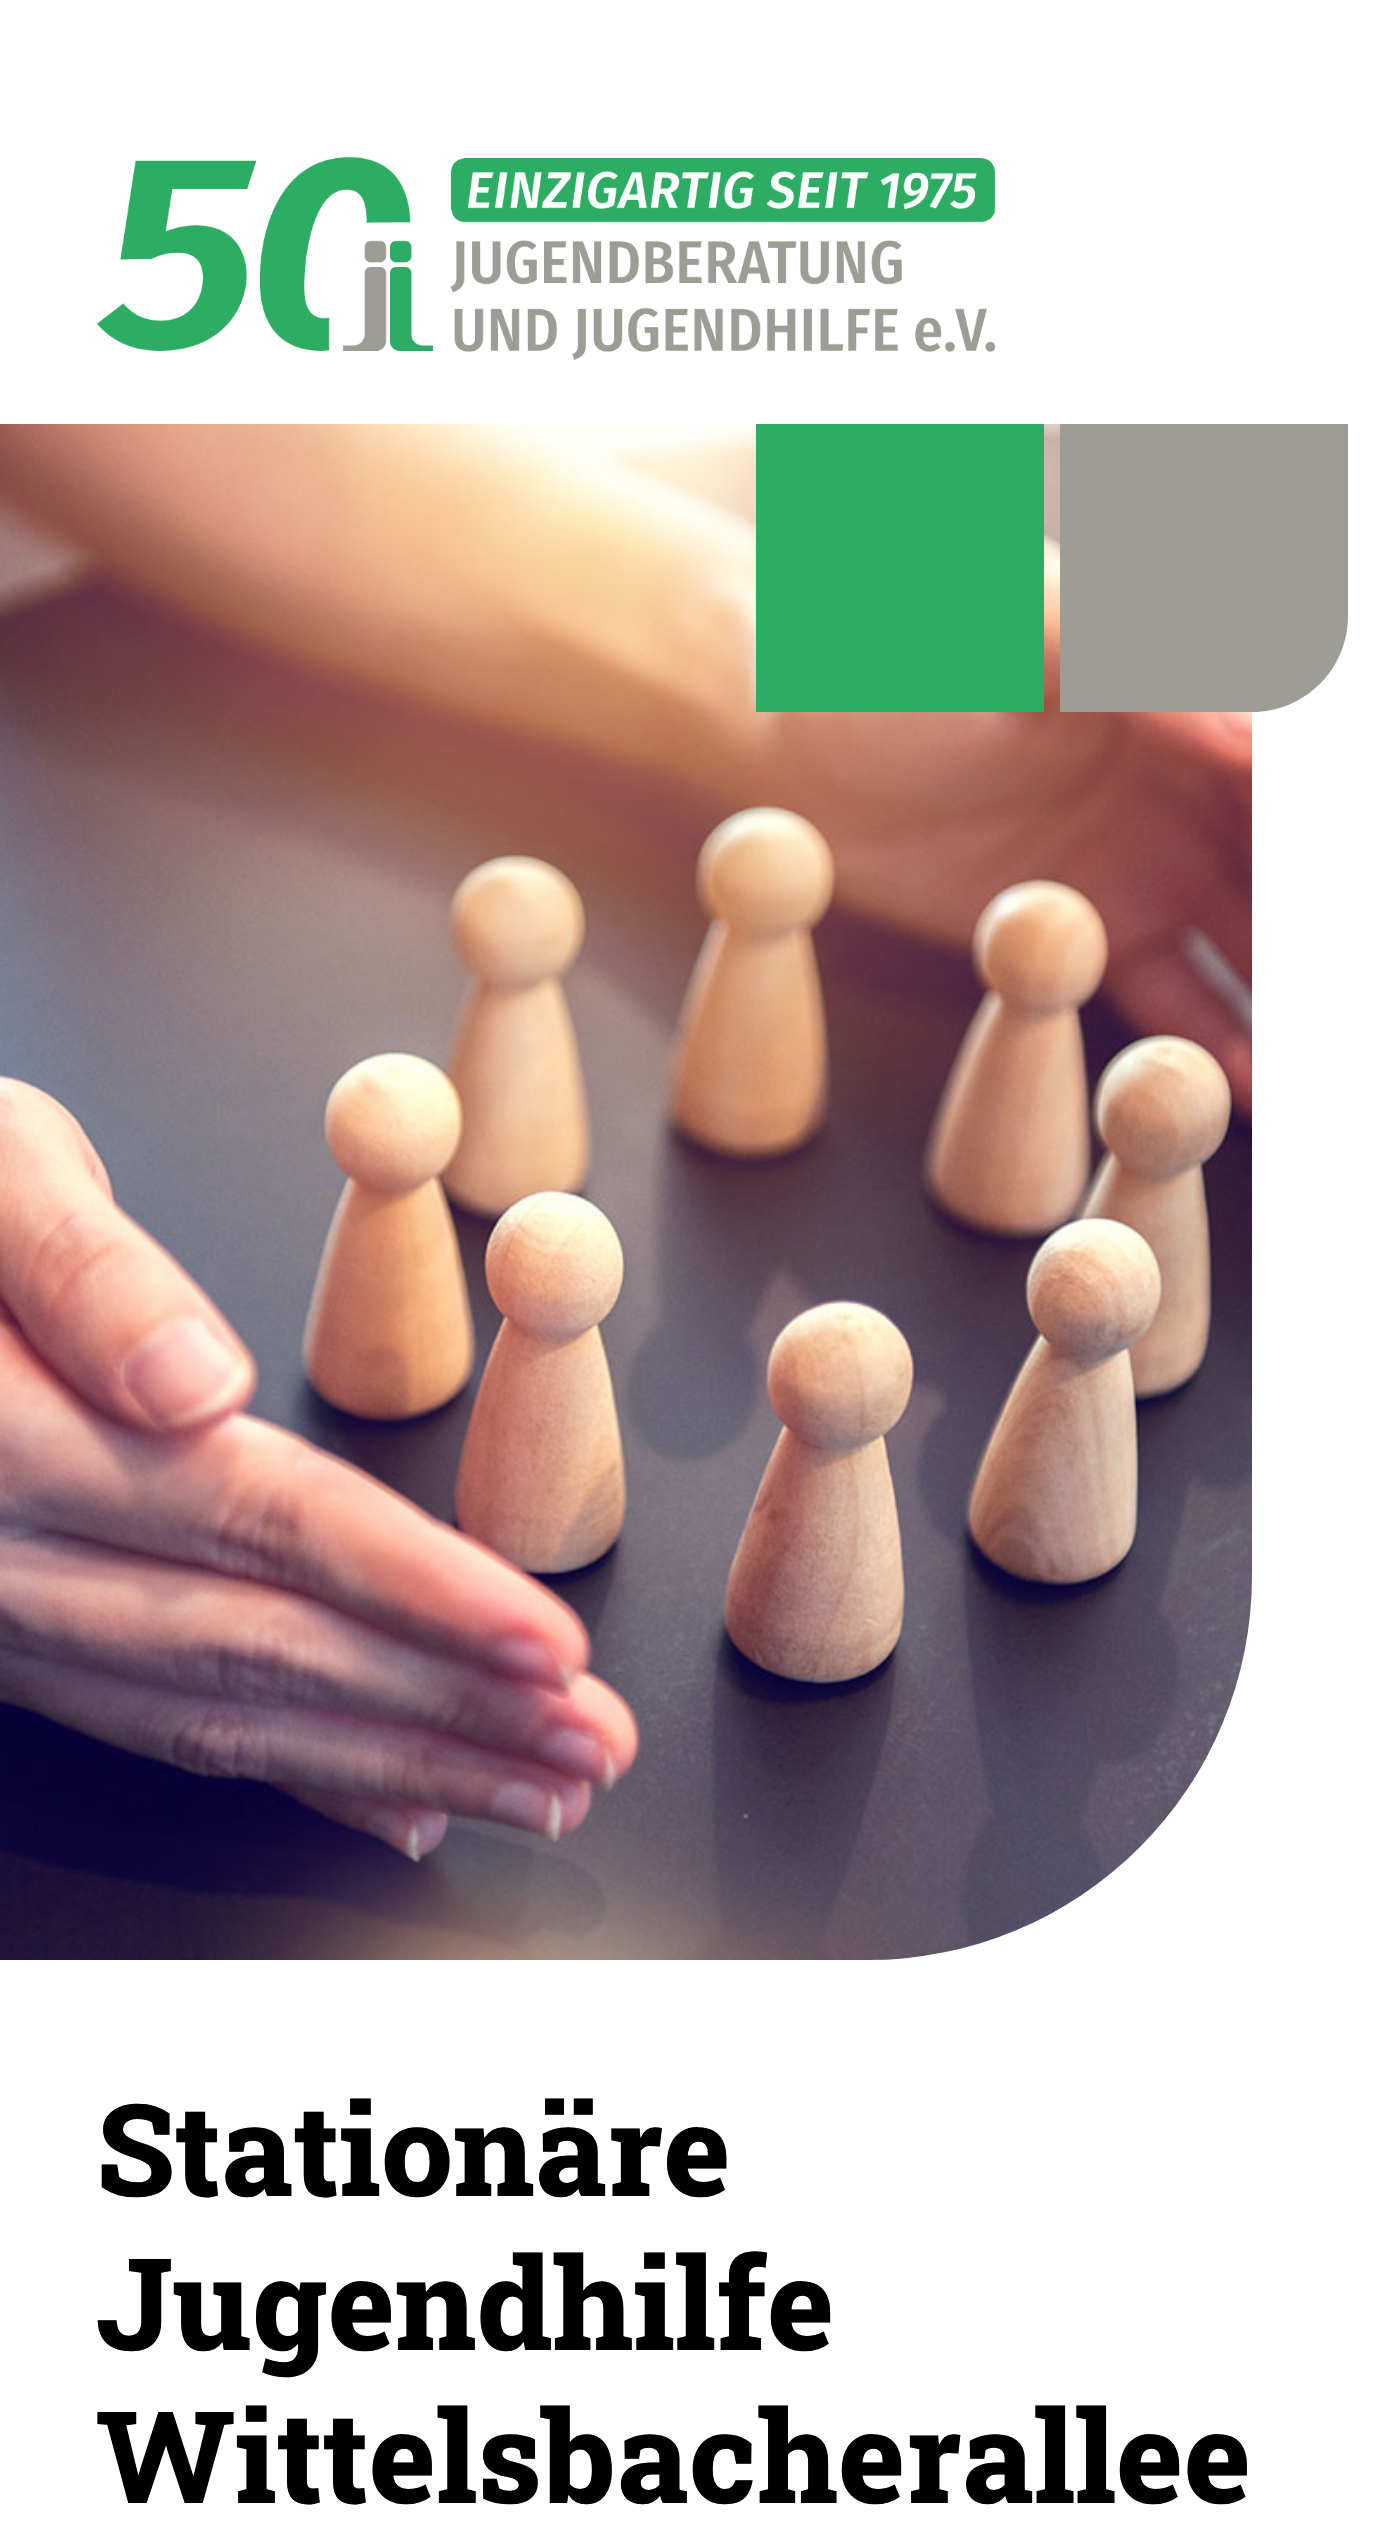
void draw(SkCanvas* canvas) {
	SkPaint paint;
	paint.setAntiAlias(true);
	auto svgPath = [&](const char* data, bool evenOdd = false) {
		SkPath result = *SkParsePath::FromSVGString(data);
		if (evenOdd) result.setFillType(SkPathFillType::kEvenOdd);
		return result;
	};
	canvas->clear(0xffffffff);
	canvas->drawImageRect(SkImages::DeferredFromEncodedData(SkData::MakeFromFileName("img1.png")), SkRect::MakeXYWH(96, 156, 900, 204), SkSamplingOptions());
	canvas->drawImageRect(SkImages::DeferredFromEncodedData(SkData::MakeFromFileName("img2.png")), SkRect::MakeXYWH(0, 424, 1252, 1536), SkSamplingOptions());
	paint.setColor(0xff2dad63);
	canvas->drawRect(SkRect::MakeXYWH(756, 424, 288, 288), paint);
	paint.setColor(0xff9d9d95);
	canvas->drawPath(svgPath("M1060 424H1348V616C1348 669 1305 712 1252 712H1060Z"), paint);
	SkFont f1(fontMgr->matchFamilyStyle("Roboto Slab", SkFontStyle(800, SkFontStyle::kNormal_Width, SkFontStyle::kUpright_Slant)), 128);
	f1.setSubpixel(true);
	paint.setColor(0xff000000);
	canvas->drawString("Stationäre", 96, 2196, f1, paint);
	canvas->drawString("Jugendhilfe", 96, 2350, f1, paint);
	canvas->drawString("Wittelsbacherallee", 96, 2503, f1, paint);
}
